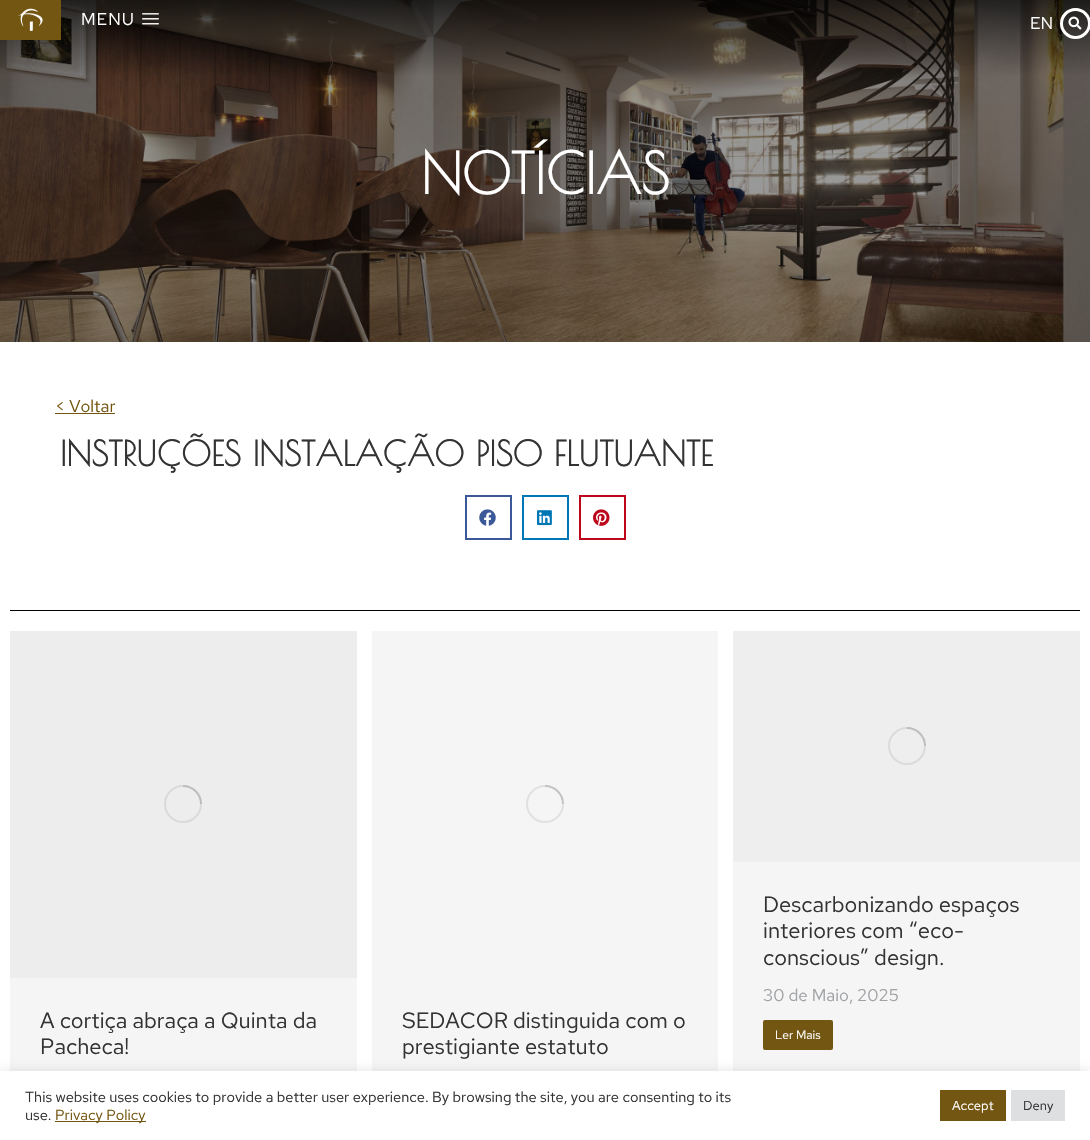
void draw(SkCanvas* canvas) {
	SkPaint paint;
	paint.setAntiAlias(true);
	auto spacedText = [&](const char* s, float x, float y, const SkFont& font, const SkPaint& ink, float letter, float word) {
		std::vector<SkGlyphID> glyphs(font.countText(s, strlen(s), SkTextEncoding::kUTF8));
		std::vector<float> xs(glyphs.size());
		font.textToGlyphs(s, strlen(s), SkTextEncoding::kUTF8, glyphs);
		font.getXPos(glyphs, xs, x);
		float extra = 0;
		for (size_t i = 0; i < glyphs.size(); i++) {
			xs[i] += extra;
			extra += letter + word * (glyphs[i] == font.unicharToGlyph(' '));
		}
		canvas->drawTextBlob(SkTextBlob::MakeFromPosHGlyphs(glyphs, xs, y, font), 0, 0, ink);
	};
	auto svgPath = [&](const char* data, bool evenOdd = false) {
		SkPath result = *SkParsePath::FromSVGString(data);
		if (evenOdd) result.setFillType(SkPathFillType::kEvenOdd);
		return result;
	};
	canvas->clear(0xffffffff);
	canvas->drawImageRect(SkImages::DeferredFromEncodedData(SkData::MakeFromFileName("img4.png")), SkRect::MakeXYWH(0, 0, 1090, 342), SkSamplingOptions());
	paint.setColor(0xff735611);
	canvas->drawRect(SkRect::MakeXYWH(0, 0, 61, 40), paint);
	canvas->drawImageRect(SkImages::DeferredFromEncodedData(SkData::MakeFromFileName("img1.png")), SkRect::MakeXYWH(18, 8, 25, 23), SkSamplingOptions());
	SkFont f1(fontMgr->matchFamilyStyle("Red Hat Text", SkFontStyle::Normal()), 17);
	f1.setSubpixel(true);
	paint.setColor(0xffffffff);
	spacedText("MENU", 81, 25, f1, paint, 1, 0);
	canvas->drawImageRect(SkImages::DeferredFromEncodedData(SkData::MakeFromFileName("img2.png")), SkRect::MakeXYWH(142, 13, 17, 12), SkSamplingOptions());
	canvas->drawString("EN", 1030, 29, f1, paint);
	paint.setStroke(true);
	paint.setStrokeWidth(3);
	canvas->drawCircle(1075.5, 23.5, 14, paint);
	canvas->drawImageRect(SkImages::DeferredFromEncodedData(SkData::MakeFromFileName("img3.png")), SkRect::MakeXYWH(1068, 16, 14, 14), SkSamplingOptions());
	SkFont f2(fontMgr->matchFamilyStyle("Poiret One", SkFontStyle::Bold()), 56);
	f2.setSubpixel(true);
	paint.setStroke(false);
	canvas->drawString("NOTÍCIAS", 421, 194, f2, paint);
	paint.setColor(0xff735611);
	canvas->drawString("< Voltar", 55, 412, f1, paint);
	canvas->drawRect(SkRect::MakeXYWH(55, 413, 60, 1), paint);
	SkFont f3(fontMgr->matchFamilyStyle("Poiret One", SkFontStyle::Bold()), 34);
	f3.setSubpixel(true);
	paint.setColor(0xff333333);
	canvas->drawString("INSTRUÇÕES INSTALAÇÃO PISO FLUTUANTE", 60, 466, f3, paint);
	paint.setStroke(true);
	paint.setStrokeWidth(2);
	paint.setColor(0xff3b5998);
	canvas->drawRect(SkRect::MakeXYWH(466, 496, 45, 43), paint);
	canvas->drawImageRect(SkImages::DeferredFromEncodedData(SkData::MakeFromFileName("img5.png")), SkRect::MakeXYWH(479, 509, 17, 17), SkSamplingOptions());
	paint.setColor(0xff0077b5);
	canvas->drawRect(SkRect::MakeXYWH(523, 496, 45, 43), paint);
	canvas->drawImageRect(SkImages::DeferredFromEncodedData(SkData::MakeFromFileName("img6.png")), SkRect::MakeXYWH(537, 510, 15, 16), SkSamplingOptions());
	paint.setColor(0xffbd081c);
	canvas->drawRect(SkRect::MakeXYWH(580, 496, 45, 43), paint);
	canvas->drawImageRect(SkImages::DeferredFromEncodedData(SkData::MakeFromFileName("img7.png")), SkRect::MakeXYWH(593, 509, 17, 17), SkSamplingOptions());
	paint.setStroke(false);
	paint.setColor(0xff000000);
	canvas->drawRect(SkRect::MakeXYWH(10, 610, 1070, 1), paint);
	paint.setColor(0xfff5f5f5);
	canvas->drawRect(SkRect::MakeXYWH(10, 978, 347, 93), paint);
	paint.setColor(0xffededed);
	canvas->drawRect(SkRect::MakeXYWH(10, 631, 347, 347), paint);
	paint.setStroke(true);
	paint.setColor(0xffdadada);
	canvas->drawCircle(183, 804, 18, paint);
	paint.setColor(0x40666666);
	canvas->drawPath(svgPath("M201 804C201 794 193 786 183 786"), paint);
	SkFont f4(fontMgr->matchFamilyStyle("Red Hat Text", SkFontStyle::Normal()), 22);
	f4.setSubpixel(true);
	paint.setStroke(false);
	paint.setColor(0xff333333);
	canvas->drawString("A cortiça abraça a Quinta da", 40, 1028, f4, paint);
	canvas->drawString("Pacheca!", 40, 1054, f4, paint);
	paint.setColor(0xfff5f5f5);
	canvas->drawRect(SkRect::MakeXYWH(372, 631, 346, 440), paint);
	paint.setStroke(true);
	paint.setColor(0xffe1e1e1);
	canvas->drawCircle(545, 804, 18, paint);
	paint.setColor(0x40666666);
	canvas->drawPath(svgPath("M563 804C563 794 555 786 545 786"), paint);
	paint.setStroke(false);
	paint.setColor(0xff333333);
	canvas->drawString("SEDACOR distinguida com o", 402, 1028, f4, paint);
	canvas->drawString("prestigiante estatuto", 402, 1054, f4, paint);
	paint.setColor(0xfff5f5f5);
	canvas->drawRect(SkRect::MakeXYWH(733, 862, 347, 209), paint);
	paint.setColor(0xffeeeeee);
	canvas->drawRect(SkRect::MakeXYWH(733, 631, 347, 231), paint);
	paint.setStroke(true);
	paint.setColor(0xffdbdbdb);
	canvas->drawCircle(907, 746, 18, paint);
	paint.setColor(0x40666666);
	canvas->drawPath(svgPath("M925 746C925 736 917 728 907 728"), paint);
	paint.setStroke(false);
	paint.setColor(0xff333333);
	canvas->drawString("Descarbonizando espaços", 763, 912, f4, paint);
	canvas->drawString("interiores com “eco-", 763, 938, f4, paint);
	canvas->drawString("conscious” design.", 763, 965, f4, paint);
	paint.setColor(0xffa0a2a5);
	canvas->drawString("30 de Maio, 2025", 763, 1001, f1, paint);
	paint.setColor(0xff735611);
	canvas->drawRoundRect(SkRect::MakeXYWH(763, 1020, 70, 30), 2, 2, paint);
	SkFont f5(fontMgr->matchFamilyStyle("Red Hat Text", SkFontStyle::Normal()), 12);
	f5.setSubpixel(true);
	paint.setColor(0xffffffff);
	canvas->drawString("Ler Mais", 775, 1039, f5, paint);
	paint.setColor(0x4dacabab);
	paint.setMaskFilter(SkMaskFilter::MakeBlur(kNormal_SkBlurStyle, 5));
	canvas->drawRect(SkRect::MakeXYWH(0, 1070, 1090, 69), paint);
	paint.setMaskFilter(nullptr);
	paint.setColor(0xffffffff);
	canvas->drawRect(SkRect::MakeXYWH(0, 1071, 1090, 69), paint);
	SkFont f6(fontMgr->matchFamilyStyle("Red Hat Text", SkFontStyle::Normal()), 14.65);
	f6.setSubpixel(true);
	paint.setColor(0xff333333);
	canvas->drawString("This website uses cookies to provide a better user experience. By browsing the site, you are consenting to its", 25, 1102, f6, paint);
	canvas->drawString("use.", 25, 1120, f6, paint);
	paint.setColor(0xff735611);
	canvas->drawRect(SkRect::MakeXYWH(55, 1121, 91, 1), paint);
	canvas->drawString("Privacy Policy", 55, 1120, f6, paint);
	canvas->drawRect(SkRect::MakeXYWH(940, 1090, 66, 31), paint);
	SkFont f7(fontMgr->matchFamilyStyle("Red Hat Text", SkFontStyle::Normal()), 13);
	f7.setSubpixel(true);
	paint.setColor(0xffffffff);
	canvas->drawString("Accept", 952, 1110, f7, paint);
	paint.setColor(0xffdedfe0);
	canvas->drawRect(SkRect::MakeXYWH(1011, 1090, 54, 31), paint);
	paint.setColor(0xff333333);
	canvas->drawString("Deny", 1023, 1110, f7, paint);
}
